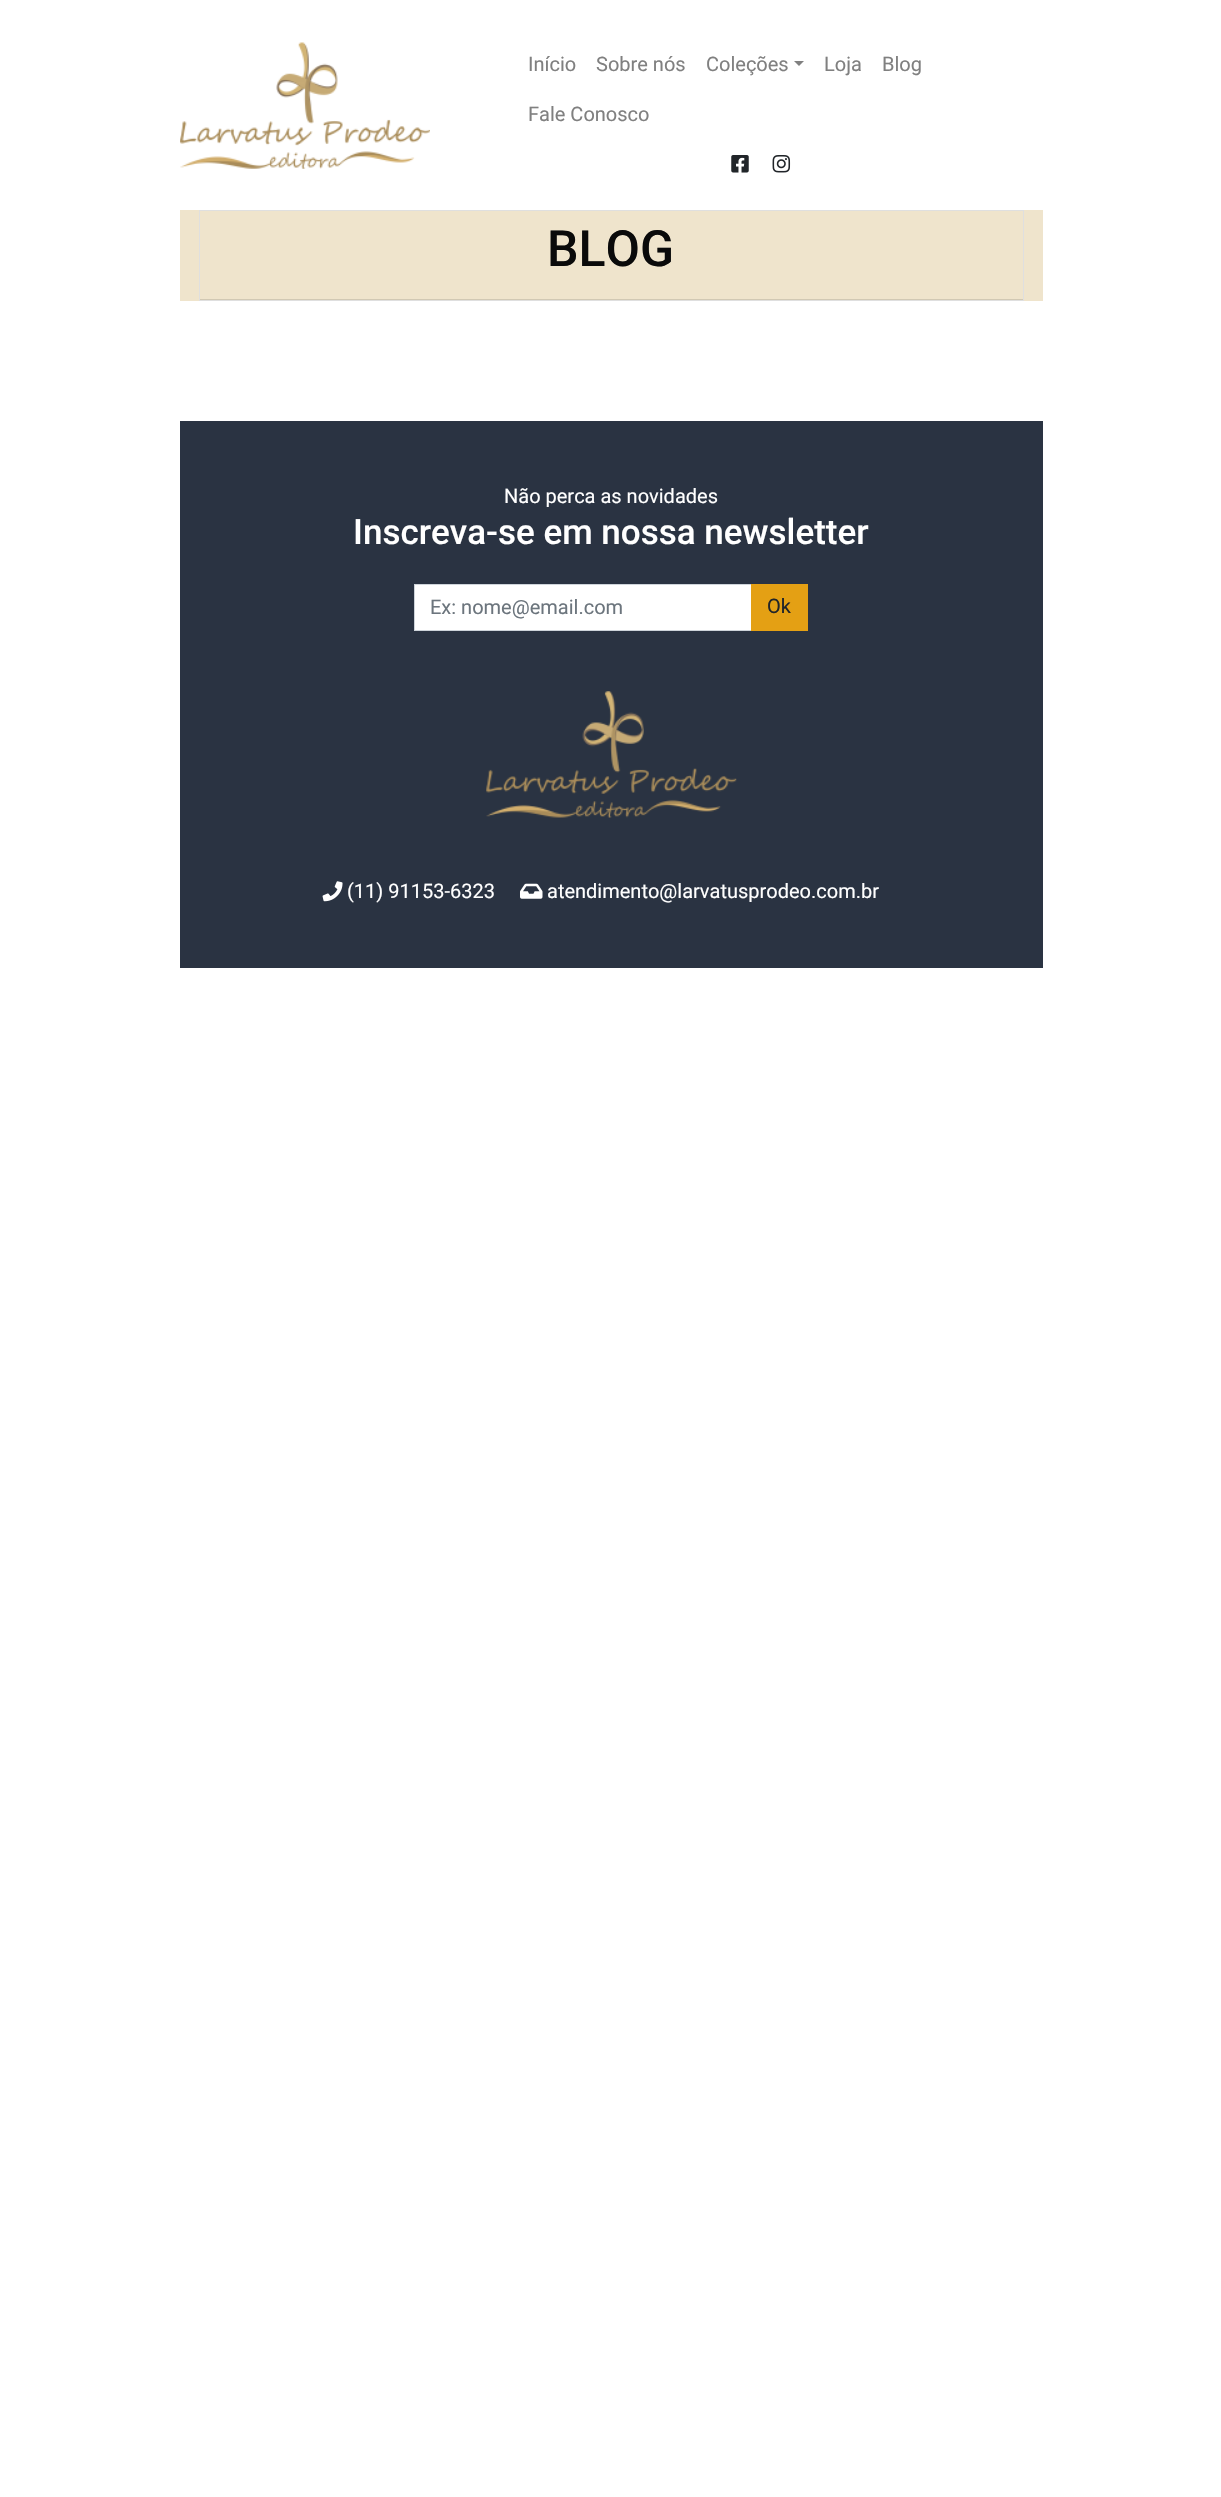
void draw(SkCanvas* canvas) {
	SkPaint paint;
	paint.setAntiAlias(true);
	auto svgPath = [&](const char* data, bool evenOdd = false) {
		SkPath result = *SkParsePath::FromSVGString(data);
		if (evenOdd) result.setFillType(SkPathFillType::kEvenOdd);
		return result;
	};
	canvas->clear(0xffffffff);
	canvas->drawImageRect(SkImages::DeferredFromEncodedData(SkData::MakeFromFileName("img1.png")), SkRect::MakeXYWH(180, 42, 250, 127), SkSamplingOptions());
	SkFont f1(fontMgr->matchFamilyStyle("Roboto", SkFontStyle::Normal()), 20);
	f1.setSubpixel(true);
	paint.setColor(0xff808080);
	canvas->drawString("Início", 528, 71, f1, paint);
	canvas->drawString("Sobre nós", 596, 71, f1, paint);
	canvas->drawString("Coleções", 706, 71, f1, paint);
	canvas->drawPath(svgPath("M794 61H804L799 66Z"), paint);
	canvas->drawString("Loja", 824, 71, f1, paint);
	canvas->drawString("Blog", 882, 71, f1, paint);
	canvas->drawString("Fale Conosco", 528, 121, f1, paint);
	canvas->drawImageRect(SkImages::DeferredFromEncodedData(SkData::MakeFromFileName("img2.png")), SkRect::MakeXYWH(731, 155, 18, 18), SkSamplingOptions());
	canvas->drawImageRect(SkImages::DeferredFromEncodedData(SkData::MakeFromFileName("img3.png")), SkRect::MakeXYWH(772, 155, 19, 18), SkSamplingOptions());
	paint.setColor(0xffefe4cc);
	canvas->drawRect(SkRect::MakeXYWH(180, 210, 863, 91), paint);
	paint.setStroke(true);
	paint.setStrokeWidth(1);
	paint.setColor(0xffdfdfdf);
	canvas->drawRect(SkRect::MakeXYWH(199.5, 210.5, 824, 90), paint);
	paint.setStroke(false);
	paint.setColor(0xffd1c8b3);
	canvas->drawRect(SkRect::MakeXYWH(200, 299, 823, 1), paint);
	SkFont f2(fontMgr->matchFamilyStyle("Roboto", SkFontStyle(500, SkFontStyle::kNormal_Width, SkFontStyle::kUpright_Slant)), 50);
	f2.setSubpixel(true);
	paint.setColor(0xff0a0a0a);
	canvas->drawString("BLOG", 547, 266, f2, paint);
	paint.setColor(0xff2a3342);
	canvas->drawRect(SkRect::MakeXYWH(180, 421, 863, 547), paint);
	paint.setColor(0xffffffff);
	canvas->drawString("Não perca as novidades", 504, 503, f1, paint);
	SkFont f3(fontMgr->matchFamilyStyle("Roboto", SkFontStyle(500, SkFontStyle::kNormal_Width, SkFontStyle::kUpright_Slant)), 35);
	f3.setSubpixel(true);
	canvas->drawString("Inscreva-se em nossa newsletter", 353, 544, f3, paint);
	canvas->drawRect(SkRect::MakeXYWH(415, 585, 336, 45), paint);
	paint.setStroke(true);
	paint.setColor(0xffced4da);
	canvas->drawRect(SkRect::MakeXYWH(414.5, 584.5, 338, 46), paint);
	paint.setStroke(false);
	paint.setColor(0xff6c757d);
	canvas->drawString("Ex: nome@email.com", 430, 614, f1, paint);
	paint.setColor(0xffe4a014);
	canvas->drawRect(SkRect::MakeXYWH(751, 584, 57, 47), paint);
	paint.setColor(0xff212529);
	canvas->drawString("Ok", 767, 613, f1, paint);
	canvas->drawImageRect(SkImages::DeferredFromEncodedData(SkData::MakeFromFileName("img4.png")), SkRect::MakeXYWH(486, 691, 251, 127), SkSamplingOptions());
	canvas->drawImageRect(SkImages::DeferredFromEncodedData(SkData::MakeFromFileName("img5.png")), SkRect::MakeXYWH(322, 881, 21, 21), SkSamplingOptions());
	paint.setColor(0xffffffff);
	canvas->drawString("(11) 91153-6323", 347, 898, f1, paint);
	canvas->drawImageRect(SkImages::DeferredFromEncodedData(SkData::MakeFromFileName("img6.png")), SkRect::MakeXYWH(520, 883, 23, 16), SkSamplingOptions());
	canvas->drawString("atendimento@larvatusprodeo.com.br", 547, 898, f1, paint);
}
